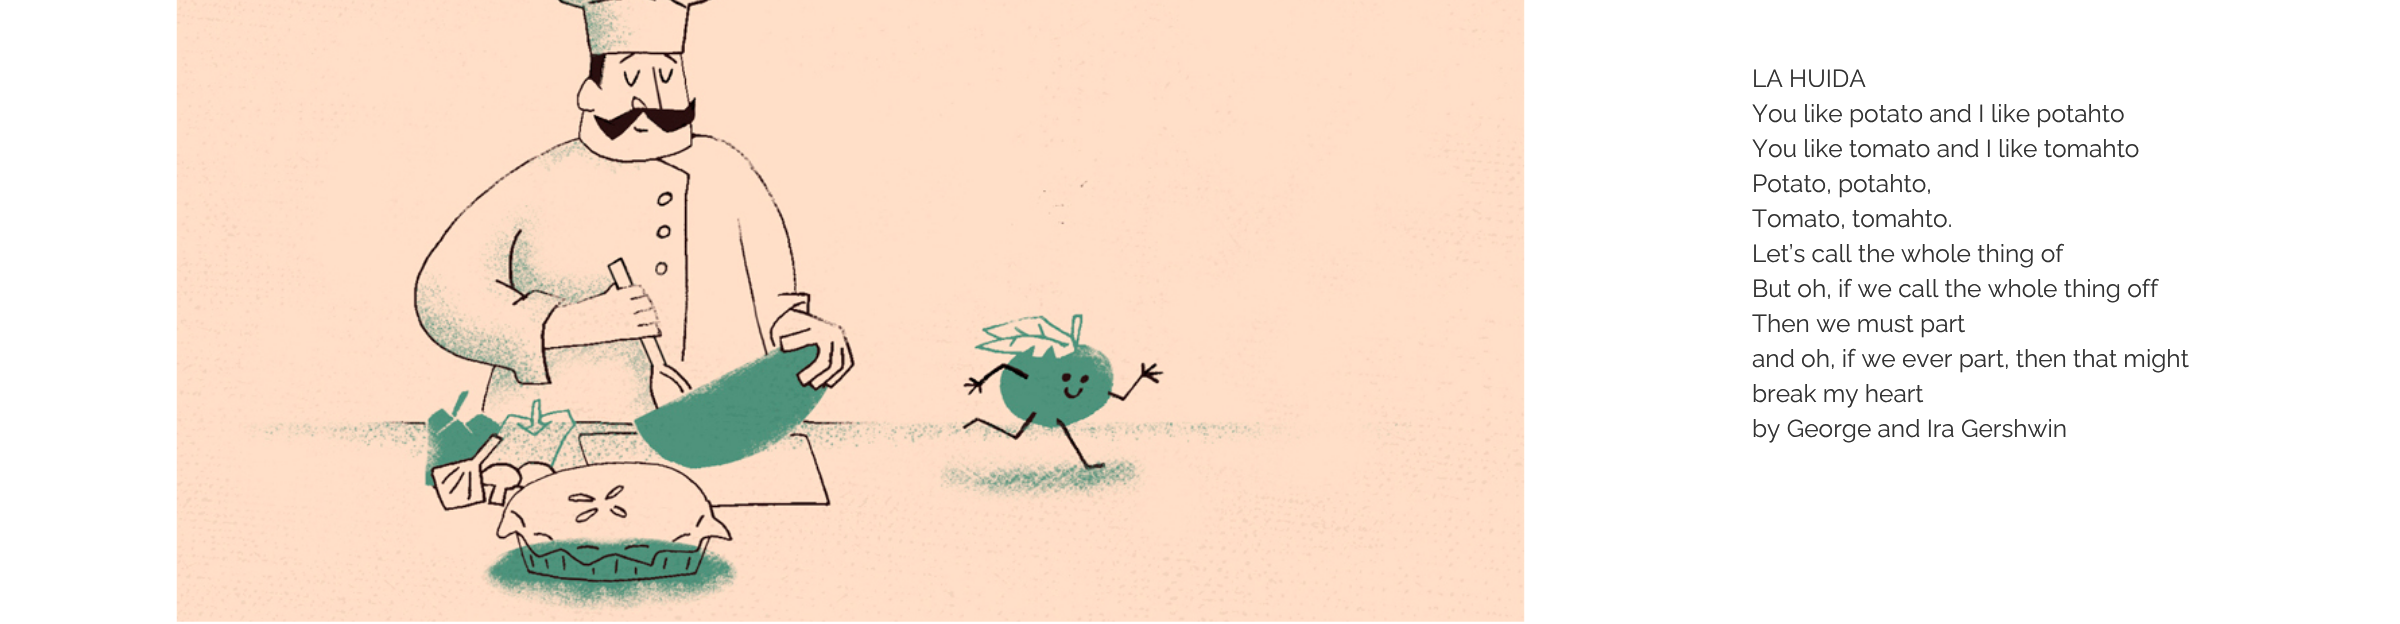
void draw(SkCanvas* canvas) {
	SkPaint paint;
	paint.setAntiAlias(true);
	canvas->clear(0xffffffff);
	canvas->drawImageRect(SkImages::DeferredFromEncodedData(SkData::MakeFromFileName("img1.png")), SkRect::MakeXYWH(176, 0, 1349, 622), SkSamplingOptions());
	SkFont f1(fontMgr->matchFamilyStyle("Raleway", SkFontStyle::Normal()), 24.5);
	f1.setSubpixel(true);
	paint.setColor(0xff333333);
	canvas->drawString("LA HUIDA", 1752, 87, f1, paint);
	canvas->drawString("You like potato and I like potahto", 1752, 122, f1, paint);
	canvas->drawString("You like tomato and I like tomahto", 1752, 157, f1, paint);
	canvas->drawString("Potato, potahto,", 1752, 192, f1, paint);
	canvas->drawString("Tomato, tomahto.", 1752, 227, f1, paint);
	canvas->drawString("Let’s call the whole thing of", 1752, 262, f1, paint);
	canvas->drawString("But oh, if we call the whole thing off", 1752, 297, f1, paint);
	canvas->drawString("Then we must part", 1752, 332, f1, paint);
	canvas->drawString("and oh, if we ever part, then that might", 1752, 367, f1, paint);
	canvas->drawString("break my heart", 1752, 402, f1, paint);
	canvas->drawString("by George and Ira Gershwin", 1752, 437, f1, paint);
}
